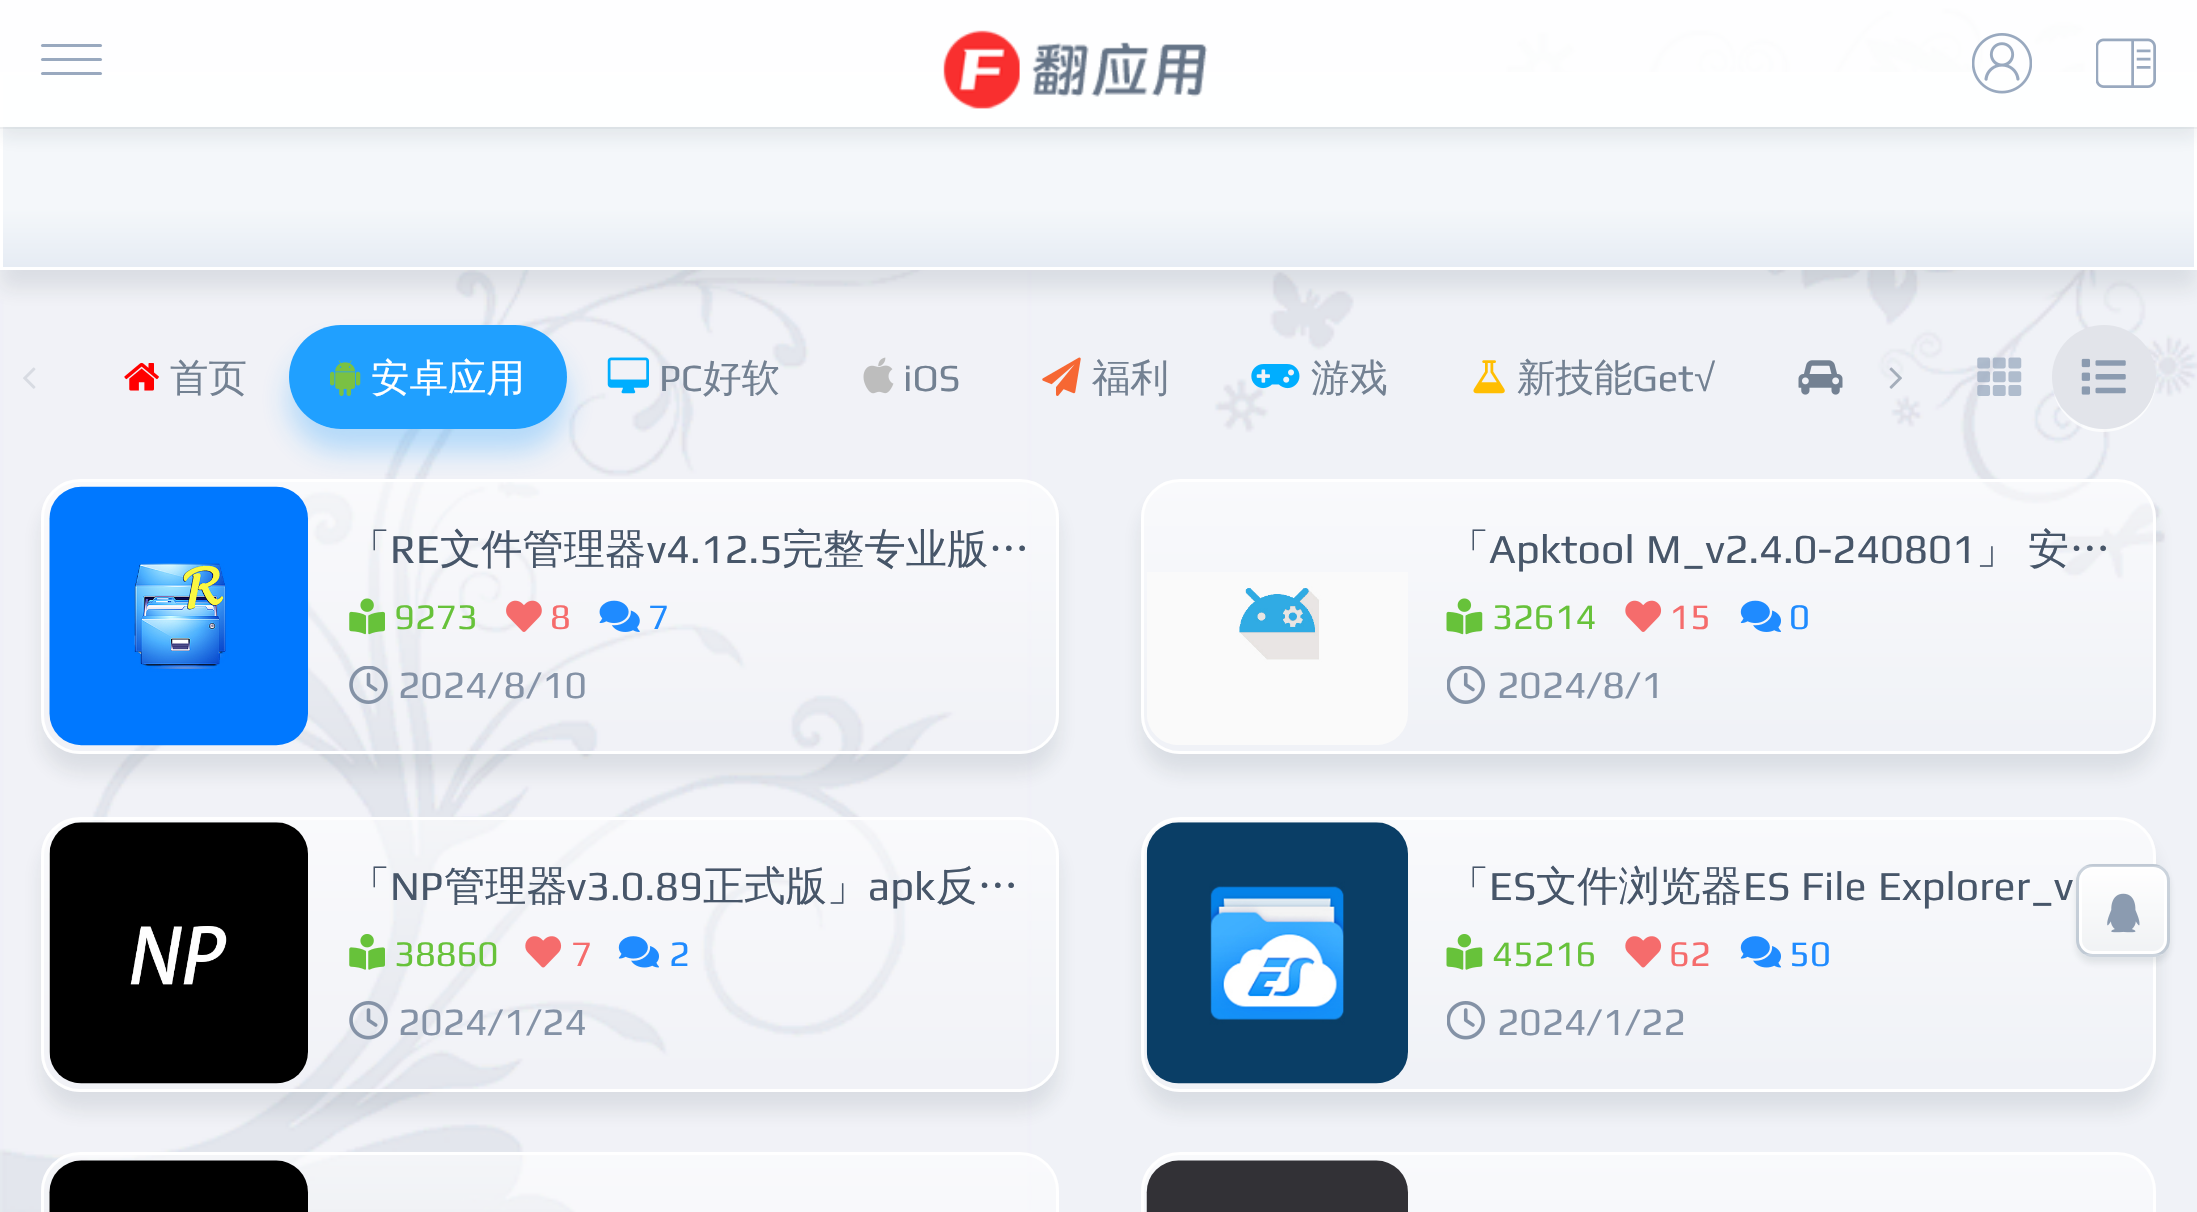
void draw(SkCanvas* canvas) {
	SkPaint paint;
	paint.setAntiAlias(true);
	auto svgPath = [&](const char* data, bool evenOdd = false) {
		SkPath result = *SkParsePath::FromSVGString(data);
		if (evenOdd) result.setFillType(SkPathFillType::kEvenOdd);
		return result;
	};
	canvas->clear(0xfff0f2f7);
	canvas->drawImageRect(SkImages::DeferredFromEncodedData(SkData::MakeFromFileName("img1.png")), SkRect::MakeXYWH(0, 8, 2197, 1204), SkSamplingOptions());
	paint.setColor(0x1a1f2d3d);
	paint.setMaskFilter(SkMaskFilter::MakeBlur(kNormal_SkBlurStyle, 9.5));
	canvas->drawRect(SkRect::MakeXYWH(0, 91, 2197, 198), paint);
	paint.setMaskFilter(nullptr);
	{
		const SkColor colors[] = {0xfff4f7fa, 0xffe6ecf4};
		const float stops[] = {0.7, 1};
		const SkPoint ends[] = {{1099, 74}, {1099, 267}};
		paint.setShader(SkGradientShader::MakeLinear(ends, colors, stops, 2, SkTileMode::kClamp));
		paint.setAlpha(255);
	}
	canvas->drawRect(SkRect::MakeXYWH(3, 75, 2191, 192), paint);
	paint.setStroke(true);
	paint.setStrokeWidth(3);
	paint.setShader(nullptr);
	paint.setColor(0xffffffff);
	canvas->drawRect(SkRect::MakeXYWH(1.5, 73.5, 2194, 195), paint);
	canvas->save();
	canvas->clipPath(svgPath("M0 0H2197V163H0ZM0 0H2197V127H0Z", true), true);
	paint.setStroke(false);
	paint.setColor(0x141f2d3d);
	paint.setMaskFilter(SkMaskFilter::MakeBlur(kNormal_SkBlurStyle, 8));
	canvas->drawRect(SkRect::MakeXYWH(0, 11, 2197, 127), paint);
	paint.setMaskFilter(nullptr);
	canvas->restore();
	paint.setColor(0x0d404f5d);
	canvas->drawRect(SkRect::MakeXYWH(0, 126, 2197, 3), paint);
	paint.setColor(0xe6ffffff);
	canvas->drawRect(SkRect::MakeXYWH(0, 0, 2197, 127), paint);
	canvas->drawImageRect(SkImages::DeferredFromEncodedData(SkData::MakeFromFileName("img2.png")), SkRect::MakeXYWH(943, 30, 265, 79), SkSamplingOptions());
	paint.setColor(0xff99a9bf);
	canvas->drawRoundRect(SkRect::MakeXYWH(41, 44, 61, 3), 1.5, 1.5, paint);
	canvas->drawRoundRect(SkRect::MakeXYWH(41, 58, 61, 3), 1.5, 1.5, paint);
	canvas->drawRoundRect(SkRect::MakeXYWH(41, 72, 61, 3), 1.5, 1.5, paint);
	canvas->drawImageRect(SkImages::DeferredFromEncodedData(SkData::MakeFromFileName("img3.png")), SkRect::MakeXYWH(1972, 33, 60, 61), SkSamplingOptions());
	canvas->drawImageRect(SkImages::DeferredFromEncodedData(SkData::MakeFromFileName("img4.png")), SkRect::MakeXYWH(2096, 38, 60, 50), SkSamplingOptions());
	canvas->drawImageRect(SkImages::DeferredFromEncodedData(SkData::MakeFromFileName("img5.png")), SkRect::MakeXYWH(23, 367, 13, 22), SkSamplingOptions());
	canvas->drawImageRect(SkImages::DeferredFromEncodedData(SkData::MakeFromFileName("img6.png")), SkRect::MakeXYWH(124, 362, 35, 29), SkSamplingOptions());
	SkFont f1(fontMgr->matchFamilyStyle("WenQuanYi Zen Hei", SkFontStyle(500, SkFontStyle::kNormal_Width, SkFontStyle::kUpright_Slant)), 38.5);
	f1.setSubpixel(true);
	paint.setColor(0xff738192);
	canvas->drawString("首页", 170, 391, f1, paint);
	canvas->save();
	canvas->clipPath(svgPath("M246 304H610V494H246ZM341 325H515C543.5 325 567 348.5 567 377C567 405.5 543.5 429 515 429H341C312.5 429 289 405.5 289 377C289 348.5 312.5 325 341 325Z", true), true);
	paint.setColor(0x4d20a0ff);
	paint.setMaskFilter(SkMaskFilter::MakeBlur(kNormal_SkBlurStyle, 14));
	canvas->drawRoundRect(SkRect::MakeXYWH(289, 347, 278, 104), 52, 52, paint);
	paint.setMaskFilter(nullptr);
	canvas->restore();
	paint.setColor(0xff20a0ff);
	canvas->drawRoundRect(SkRect::MakeXYWH(289, 325, 278, 104), 52, 52, paint);
	canvas->drawImageRect(SkImages::DeferredFromEncodedData(SkData::MakeFromFileName("img7.png")), SkRect::MakeXYWH(330, 360, 31, 36), SkSamplingOptions());
	paint.setColor(0xffffffff);
	canvas->drawString("安卓应用", 371, 391, f1, paint);
	canvas->drawImageRect(SkImages::DeferredFromEncodedData(SkData::MakeFromFileName("img8.png")), SkRect::MakeXYWH(607, 357, 42, 37), SkSamplingOptions());
	SkFont f2(fontMgr->matchFamilyStyle("Play", SkFontStyle::Normal()), 38.5);
	f2.setSubpixel(true);
	paint.setColor(0xff738192);
	canvas->drawString("PC", 659, 391, f2, paint);
	canvas->drawString("好软", 703, 391, f1, paint);
	canvas->drawImageRect(SkImages::DeferredFromEncodedData(SkData::MakeFromFileName("img9.png")), SkRect::MakeXYWH(863, 357, 31, 37), SkSamplingOptions());
	canvas->drawString("iOS", 903, 391, f2, paint);
	canvas->drawImageRect(SkImages::DeferredFromEncodedData(SkData::MakeFromFileName("img10.png")), SkRect::MakeXYWH(1042, 357, 39, 39), SkSamplingOptions());
	canvas->drawString("福利", 1092, 391, f1, paint);
	canvas->drawImageRect(SkImages::DeferredFromEncodedData(SkData::MakeFromFileName("img11.png")), SkRect::MakeXYWH(1251, 364, 49, 25), SkSamplingOptions());
	canvas->drawString("游戏", 1311, 391, f1, paint);
	canvas->drawImageRect(SkImages::DeferredFromEncodedData(SkData::MakeFromFileName("img12.png")), SkRect::MakeXYWH(1473, 360, 32, 34), SkSamplingOptions());
	canvas->drawString("新技能", 1517, 391, f1, paint);
	canvas->drawString("Get", 1632, 391, f2, paint);
	SkFont f3(fontMgr->matchFamilyStyle("Liberation Sans", SkFontStyle::Normal()), 38.5);
	f3.setSubpixel(true);
	canvas->drawString("√", 1694, 391, f3, paint);
	canvas->drawImageRect(SkImages::DeferredFromEncodedData(SkData::MakeFromFileName("img13.png")), SkRect::MakeXYWH(1798, 360, 45, 35), SkSamplingOptions());
	canvas->drawImageRect(SkImages::DeferredFromEncodedData(SkData::MakeFromFileName("img14.png")), SkRect::MakeXYWH(1889, 367, 13, 22), SkSamplingOptions());
	canvas->drawImageRect(SkImages::DeferredFromEncodedData(SkData::MakeFromFileName("img15.png")), SkRect::MakeXYWH(1977, 357, 45, 39), SkSamplingOptions());
	paint.setColor(0xbfffffff);
	canvas->drawPath(svgPath("M2156 378C2155 406 2132 429 2104 429C2078 429 2057 411 2052 386C2054 396 2057 405 2063 412C2094 452 2157 428 2156 378Z"), paint);
	paint.setColor(0xffe2e4ea);
	canvas->drawCircle(2104, 377, 52, paint);
	canvas->drawImageRect(SkImages::DeferredFromEncodedData(SkData::MakeFromFileName("img16.png")), SkRect::MakeXYWH(2081, 358, 45, 37), SkSamplingOptions());
	canvas->save();
	canvas->clipPath(svgPath("M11 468H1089V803H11ZM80 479H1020C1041.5 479 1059 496.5 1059 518V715C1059 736.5 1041.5 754 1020 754H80C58.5 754 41 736.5 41 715V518C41 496.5 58.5 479 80 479Z", true), true);
	paint.setColor(0x1a1f2d3d);
	paint.setMaskFilter(SkMaskFilter::MakeBlur(kNormal_SkBlurStyle, 9.5));
	canvas->drawRoundRect(SkRect::MakeXYWH(41, 498, 1018, 275), 39, 39, paint);
	paint.setMaskFilter(nullptr);
	canvas->restore();
	canvas->save();
	canvas->clipPath(svgPath("M80 479H1020C1041.5 479 1059 496.5 1059 518V715C1059 736.5 1041.5 754 1020 754H80C58.5 754 41 736.5 41 715V518C41 496.5 58.5 479 80 479Z"), true);
	{
		const SkColor colors[] = {0x99ffffff, 0x00ffffff};
		const float stops[] = {0, 1};
		const SkPoint ends[] = {{550, 481}, {550, 751}};
		paint.setShader(SkGradientShader::MakeLinear(ends, colors, stops, 2, SkTileMode::kClamp));
		paint.setAlpha(255);
	}
	canvas->drawRect(SkRect::MakeXYWH(41, 481, 1018, 260), paint);
	canvas->restore();
	paint.setStroke(true);
	paint.setShader(nullptr);
	paint.setColor(0xffffffff);
	canvas->drawRoundRect(SkRect::MakeXYWH(42.5, 480.5, 1015, 272), 37.5, 37.5, paint);
	canvas->drawImageRect(SkImages::DeferredFromEncodedData(SkData::MakeFromFileName("img17.png")), SkRect::MakeXYWH(49, 486, 260, 260), SkSamplingOptions());
	SkFont f4(fontMgr->matchFamilyStyle("WenQuanYi Zen Hei", SkFontStyle(500, SkFontStyle::kNormal_Width, SkFontStyle::kUpright_Slant)), 41.25);
	f4.setSubpixel(true);
	paint.setStroke(false);
	paint.setColor(0xff475669);
	canvas->drawString("「", 349, 563, f4, paint);
	SkFont f5(fontMgr->matchFamilyStyle("Play", SkFontStyle::Normal()), 41.25);
	f5.setSubpixel(true);
	canvas->drawString("RE", 390, 563, f5, paint);
	canvas->drawString("文件管理器", 440, 563, f4, paint);
	canvas->drawString("v4.12.5", 647, 563, f5, paint);
	canvas->drawString("完整专业版…", 782, 563, f4, paint);
	canvas->drawImageRect(SkImages::DeferredFromEncodedData(SkData::MakeFromFileName("img18.png")), SkRect::MakeXYWH(349, 598, 36, 37), SkSamplingOptions());
	SkFont f6(fontMgr->matchFamilyStyle("Play", SkFontStyle::Normal()), 36);
	f6.setSubpixel(true);
	paint.setColor(0xff67c23a);
	canvas->drawString("9273", 394, 629, f6, paint);
	canvas->drawImageRect(SkImages::DeferredFromEncodedData(SkData::MakeFromFileName("img19.png")), SkRect::MakeXYWH(506, 600, 36, 32), SkSamplingOptions());
	paint.setColor(0xfff56c6c);
	canvas->drawString("8", 550, 629, f6, paint);
	canvas->drawImageRect(SkImages::DeferredFromEncodedData(SkData::MakeFromFileName("img20.png")), SkRect::MakeXYWH(599, 600, 41, 32), SkSamplingOptions());
	paint.setColor(0xff1f8bff);
	canvas->drawString("7", 648, 629, f6, paint);
	canvas->drawImageRect(SkImages::DeferredFromEncodedData(SkData::MakeFromFileName("img21.png")), SkRect::MakeXYWH(349, 666, 39, 38), SkSamplingOptions());
	paint.setColor(0xff8492a6);
	canvas->drawString("2024/8/10", 398, 698, f2, paint);
	canvas->save();
	canvas->clipPath(svgPath("M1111 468H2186V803H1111ZM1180 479H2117C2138.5 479 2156 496.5 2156 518V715C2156 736.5 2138.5 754 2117 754H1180C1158.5 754 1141 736.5 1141 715V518C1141 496.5 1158.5 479 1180 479Z", true), true);
	paint.setColor(0x1a1f2d3d);
	paint.setMaskFilter(SkMaskFilter::MakeBlur(kNormal_SkBlurStyle, 9.5));
	canvas->drawRoundRect(SkRect::MakeXYWH(1141, 498, 1015, 275), 39, 39, paint);
	paint.setMaskFilter(nullptr);
	canvas->restore();
	canvas->save();
	canvas->clipPath(svgPath("M1180 479H2117C2138.5 479 2156 496.5 2156 518V715C2156 736.5 2138.5 754 2117 754H1180C1158.5 754 1141 736.5 1141 715V518C1141 496.5 1158.5 479 1180 479Z"), true);
	{
		const SkColor colors[] = {0x99ffffff, 0x00ffffff};
		const float stops[] = {0, 1};
		const SkPoint ends[] = {{1649, 481}, {1649, 751}};
		paint.setShader(SkGradientShader::MakeLinear(ends, colors, stops, 2, SkTileMode::kClamp));
		paint.setAlpha(255);
	}
	canvas->drawRect(SkRect::MakeXYWH(1141, 481, 1015, 260), paint);
	canvas->restore();
	paint.setStroke(true);
	paint.setShader(nullptr);
	paint.setColor(0xffffffff);
	canvas->drawRoundRect(SkRect::MakeXYWH(1142.5, 480.5, 1012, 272), 37.5, 37.5, paint);
	canvas->drawImageRect(SkImages::DeferredFromEncodedData(SkData::MakeFromFileName("img22.png")), SkRect::MakeXYWH(1147, 572, 261, 173), SkSamplingOptions());
	paint.setStroke(false);
	paint.setColor(0xff475669);
	canvas->drawString("「", 1448, 563, f4, paint);
	canvas->drawString("Apktool", 1489, 563, f5, paint);
	canvas->drawString("M_v2.4.0-240801", 1646, 563, f5, paint);
	canvas->drawString("」", 1976, 563, f4, paint);
	canvas->drawString("安…", 2028, 563, f4, paint);
	canvas->drawImageRect(SkImages::DeferredFromEncodedData(SkData::MakeFromFileName("img23.png")), SkRect::MakeXYWH(1446, 598, 37, 37), SkSamplingOptions());
	paint.setColor(0xff67c23a);
	canvas->drawString("32614", 1492, 629, f6, paint);
	canvas->drawImageRect(SkImages::DeferredFromEncodedData(SkData::MakeFromFileName("img24.png")), SkRect::MakeXYWH(1625, 600, 37, 32), SkSamplingOptions());
	paint.setColor(0xfff56c6c);
	canvas->drawString("15", 1669, 629, f6, paint);
	canvas->drawImageRect(SkImages::DeferredFromEncodedData(SkData::MakeFromFileName("img25.png")), SkRect::MakeXYWH(1740, 600, 41, 32), SkSamplingOptions());
	paint.setColor(0xff1f8bff);
	canvas->drawString("0", 1789, 629, f6, paint);
	canvas->drawImageRect(SkImages::DeferredFromEncodedData(SkData::MakeFromFileName("img26.png")), SkRect::MakeXYWH(1447, 666, 38, 38), SkSamplingOptions());
	paint.setColor(0xff8492a6);
	canvas->drawString("2024/8/1", 1497, 698, f2, paint);
	canvas->save();
	canvas->clipPath(svgPath("M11 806H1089V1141H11ZM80 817H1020C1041.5 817 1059 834.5 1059 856V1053C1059 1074.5 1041.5 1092 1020 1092H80C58.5 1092 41 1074.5 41 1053V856C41 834.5 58.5 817 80 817Z", true), true);
	paint.setColor(0x1a1f2d3d);
	paint.setMaskFilter(SkMaskFilter::MakeBlur(kNormal_SkBlurStyle, 9.5));
	canvas->drawRoundRect(SkRect::MakeXYWH(41, 836, 1018, 275), 39, 39, paint);
	paint.setMaskFilter(nullptr);
	canvas->restore();
	canvas->save();
	canvas->clipPath(svgPath("M80 817H1020C1041.5 817 1059 834.5 1059 856V1053C1059 1074.5 1041.5 1092 1020 1092H80C58.5 1092 41 1074.5 41 1053V856C41 834.5 58.5 817 80 817Z"), true);
	{
		const SkColor colors[] = {0x99ffffff, 0x00ffffff};
		const float stops[] = {0, 1};
		const SkPoint ends[] = {{550, 820}, {550, 1089}};
		paint.setShader(SkGradientShader::MakeLinear(ends, colors, stops, 2, SkTileMode::kClamp));
		paint.setAlpha(255);
	}
	canvas->drawRect(SkRect::MakeXYWH(41, 820, 1018, 259), paint);
	canvas->restore();
	paint.setStroke(true);
	paint.setShader(nullptr);
	paint.setColor(0xffffffff);
	canvas->drawRoundRect(SkRect::MakeXYWH(42.5, 818.5, 1015, 272), 37.5, 37.5, paint);
	canvas->drawImageRect(SkImages::DeferredFromEncodedData(SkData::MakeFromFileName("img27.png")), SkRect::MakeXYWH(49, 822, 259, 262), SkSamplingOptions());
	paint.setStroke(false);
	paint.setColor(0xff475669);
	canvas->drawString("「", 349, 900, f4, paint);
	canvas->drawString("NP", 390, 900, f5, paint);
	canvas->drawString("管理器", 444, 900, f4, paint);
	canvas->drawString("v3.0.89", 567, 900, f5, paint);
	canvas->drawString("正式版」", 703, 900, f4, paint);
	canvas->drawString("apk", 868, 900, f5, paint);
	canvas->drawString("反…", 936, 900, f4, paint);
	canvas->drawImageRect(SkImages::DeferredFromEncodedData(SkData::MakeFromFileName("img28.png")), SkRect::MakeXYWH(349, 934, 36, 36), SkSamplingOptions());
	paint.setColor(0xff67c23a);
	canvas->drawString("38860", 394, 966, f6, paint);
	canvas->drawImageRect(SkImages::DeferredFromEncodedData(SkData::MakeFromFileName("img29.png")), SkRect::MakeXYWH(525, 936, 37, 32), SkSamplingOptions());
	paint.setColor(0xfff56c6c);
	canvas->drawString("7", 571, 966, f6, paint);
	canvas->drawImageRect(SkImages::DeferredFromEncodedData(SkData::MakeFromFileName("img30.png")), SkRect::MakeXYWH(618, 936, 41, 32), SkSamplingOptions());
	paint.setColor(0xff1f8bff);
	canvas->drawString("2", 669, 966, f6, paint);
	canvas->drawImageRect(SkImages::DeferredFromEncodedData(SkData::MakeFromFileName("img31.png")), SkRect::MakeXYWH(349, 1001, 39, 39), SkSamplingOptions());
	paint.setColor(0xff8492a6);
	canvas->drawString("2024/1/24", 398, 1035, f2, paint);
	canvas->save();
	canvas->clipPath(svgPath("M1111 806H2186V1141H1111ZM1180 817H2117C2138.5 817 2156 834.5 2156 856V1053C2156 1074.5 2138.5 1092 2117 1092H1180C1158.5 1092 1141 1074.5 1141 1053V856C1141 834.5 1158.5 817 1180 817Z", true), true);
	paint.setColor(0x1a1f2d3d);
	paint.setMaskFilter(SkMaskFilter::MakeBlur(kNormal_SkBlurStyle, 9.5));
	canvas->drawRoundRect(SkRect::MakeXYWH(1141, 836, 1015, 275), 39, 39, paint);
	paint.setMaskFilter(nullptr);
	canvas->restore();
	canvas->save();
	canvas->clipPath(svgPath("M1180 817H2117C2138.5 817 2156 834.5 2156 856V1053C2156 1074.5 2138.5 1092 2117 1092H1180C1158.5 1092 1141 1074.5 1141 1053V856C1141 834.5 1158.5 817 1180 817Z"), true);
	{
		const SkColor colors[] = {0x99ffffff, 0x00ffffff};
		const float stops[] = {0, 1};
		const SkPoint ends[] = {{1649, 820}, {1649, 1089}};
		paint.setShader(SkGradientShader::MakeLinear(ends, colors, stops, 2, SkTileMode::kClamp));
		paint.setAlpha(255);
	}
	canvas->drawRect(SkRect::MakeXYWH(1141, 820, 1015, 259), paint);
	canvas->restore();
	paint.setStroke(true);
	paint.setShader(nullptr);
	paint.setColor(0xffffffff);
	canvas->drawRoundRect(SkRect::MakeXYWH(1142.5, 818.5, 1012, 272), 37.5, 37.5, paint);
	canvas->drawImageRect(SkImages::DeferredFromEncodedData(SkData::MakeFromFileName("img32.png")), SkRect::MakeXYWH(1146, 822, 262, 262), SkSamplingOptions());
	paint.setStroke(false);
	paint.setColor(0xff475669);
	canvas->drawString("「", 1448, 900, f4, paint);
	canvas->drawString("ES", 1489, 900, f5, paint);
	canvas->drawString("文件浏览器", 1536, 900, f4, paint);
	canvas->drawString("ES", 1743, 900, f5, paint);
	canvas->drawString("File", 1801, 900, f5, paint);
	canvas->drawString("Explorer_v", 1878, 900, f5, paint);
	canvas->drawImageRect(SkImages::DeferredFromEncodedData(SkData::MakeFromFileName("img33.png")), SkRect::MakeXYWH(1446, 934, 37, 36), SkSamplingOptions());
	paint.setColor(0xff67c23a);
	canvas->drawString("45216", 1492, 966, f6, paint);
	canvas->drawImageRect(SkImages::DeferredFromEncodedData(SkData::MakeFromFileName("img34.png")), SkRect::MakeXYWH(1625, 936, 37, 32), SkSamplingOptions());
	paint.setColor(0xfff56c6c);
	canvas->drawString("62", 1669, 966, f6, paint);
	canvas->drawImageRect(SkImages::DeferredFromEncodedData(SkData::MakeFromFileName("img35.png")), SkRect::MakeXYWH(1740, 936, 41, 32), SkSamplingOptions());
	paint.setColor(0xff1f8bff);
	canvas->drawString("50", 1789, 966, f6, paint);
	canvas->drawImageRect(SkImages::DeferredFromEncodedData(SkData::MakeFromFileName("img36.png")), SkRect::MakeXYWH(1447, 1001, 38, 39), SkSamplingOptions());
	paint.setColor(0xff8492a6);
	canvas->drawString("2024/1/22", 1497, 1035, f2, paint);
	canvas->save();
	canvas->clipPath(svgPath("M80 1152H1020C1041.5 1152 1059 1169.5 1059 1191V1388C1059 1409.5 1041.5 1427 1020 1427H80C58.5 1427 41 1409.5 41 1388V1191C41 1169.5 58.5 1152 80 1152Z"), true);
	{
		const SkColor colors[] = {0x99ffffff, 0x00ffffff};
		const float stops[] = {0, 1};
		const SkPoint ends[] = {{550, 1155}, {550, 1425}};
		paint.setShader(SkGradientShader::MakeLinear(ends, colors, stops, 2, SkTileMode::kClamp));
		paint.setAlpha(255);
	}
	canvas->drawRect(SkRect::MakeXYWH(41, 1155, 1018, 57), paint);
	canvas->restore();
	paint.setStroke(true);
	paint.setShader(nullptr);
	paint.setColor(0xffffffff);
	canvas->drawRoundRect(SkRect::MakeXYWH(42.5, 1153.5, 1015, 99), 37.5, 37.5, paint);
	canvas->drawImageRect(SkImages::DeferredFromEncodedData(SkData::MakeFromFileName("img37.png")), SkRect::MakeXYWH(49, 1160, 260, 52), SkSamplingOptions());
	canvas->save();
	canvas->clipPath(svgPath("M1180 1152H2117C2138.5 1152 2156 1169.5 2156 1191V1388C2156 1409.5 2138.5 1427 2117 1427H1180C1158.5 1427 1141 1409.5 1141 1388V1191C1141 1169.5 1158.5 1152 1180 1152Z"), true);
	paint.setStroke(false);
	{
		const SkColor colors[] = {0x99ffffff, 0x00ffffff};
		const float stops[] = {0, 1};
		const SkPoint ends[] = {{1649, 1155}, {1649, 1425}};
		paint.setShader(SkGradientShader::MakeLinear(ends, colors, stops, 2, SkTileMode::kClamp));
		paint.setAlpha(255);
	}
	canvas->drawRect(SkRect::MakeXYWH(1141, 1155, 1015, 57), paint);
	canvas->restore();
	paint.setStroke(true);
	paint.setShader(nullptr);
	paint.setColor(0xffffffff);
	canvas->drawRoundRect(SkRect::MakeXYWH(1142.5, 1153.5, 1012, 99), 37.5, 37.5, paint);
	canvas->drawImageRect(SkImages::DeferredFromEncodedData(SkData::MakeFromFileName("img38.png")), SkRect::MakeXYWH(1146, 1160, 263, 52), SkSamplingOptions());
	paint.setStroke(false);
	paint.setColor(0x1a1f2d3e);
	paint.setMaskFilter(SkMaskFilter::MakeBlur(kNormal_SkBlurStyle, 3));
	canvas->drawRoundRect(SkRect::MakeXYWH(2076, 869, 94, 94), 17, 17, paint);
	paint.setMaskFilter(nullptr);
	canvas->save();
	canvas->clipPath(svgPath("M2093 864H2153C2162.5 864 2170 871.5 2170 881V940C2170 949.5 2162.5 957 2153 957H2093C2083.5 957 2076 949.5 2076 940V881C2076 871.5 2083.5 864 2093 864Z"), true);
	{
		const SkColor colors[] = {0xffffffff, 0xfff0f2f4};
		const float stops[] = {0, 1};
		const SkPoint ends[] = {{2123, 778}, {2123, 866}};
		paint.setShader(SkGradientShader::MakeLinear(ends, colors, stops, 2, SkTileMode::kClamp));
		paint.setAlpha(255);
	}
	canvas->drawRect(SkRect::MakeXYWH(2085, 864, 76, 2), paint);
	{
		const SkColor colors[] = {0xffffffff, 0xfff0f2f4};
		const float stops[] = {0, 1};
		const SkPoint ends[] = {{2123, 866}, {2123, 954}};
		paint.setShader(SkGradientShader::MakeLinear(ends, colors, stops, 2, SkTileMode::kClamp));
		paint.setAlpha(255);
	}
	canvas->drawRect(SkRect::MakeXYWH(2076, 866, 94, 88), paint);
	{
		const SkColor colors[] = {0xffffffff, 0xfff0f2f4};
		const float stops[] = {0, 1};
		const SkPoint ends[] = {{2123, 954}, {2123, 1042}};
		paint.setShader(SkGradientShader::MakeLinear(ends, colors, stops, 2, SkTileMode::kClamp));
		paint.setAlpha(255);
	}
	canvas->drawRect(SkRect::MakeXYWH(2076, 954, 94, 3), paint);
	canvas->restore();
	paint.setStroke(true);
	paint.setShader(nullptr);
	paint.setColor(0xffffffff);
	canvas->drawRoundRect(SkRect::MakeXYWH(2080.5, 867.5, 85, 85), 12.5, 12.5, paint);
	paint.setColor(0x33002853);
	canvas->drawRoundRect(SkRect::MakeXYWH(2077.5, 865.5, 91, 90), 15.5, 15.5, paint);
	canvas->drawImageRect(SkImages::DeferredFromEncodedData(SkData::MakeFromFileName("img39.png")), SkRect::MakeXYWH(2107, 893, 33, 40), SkSamplingOptions());
}
